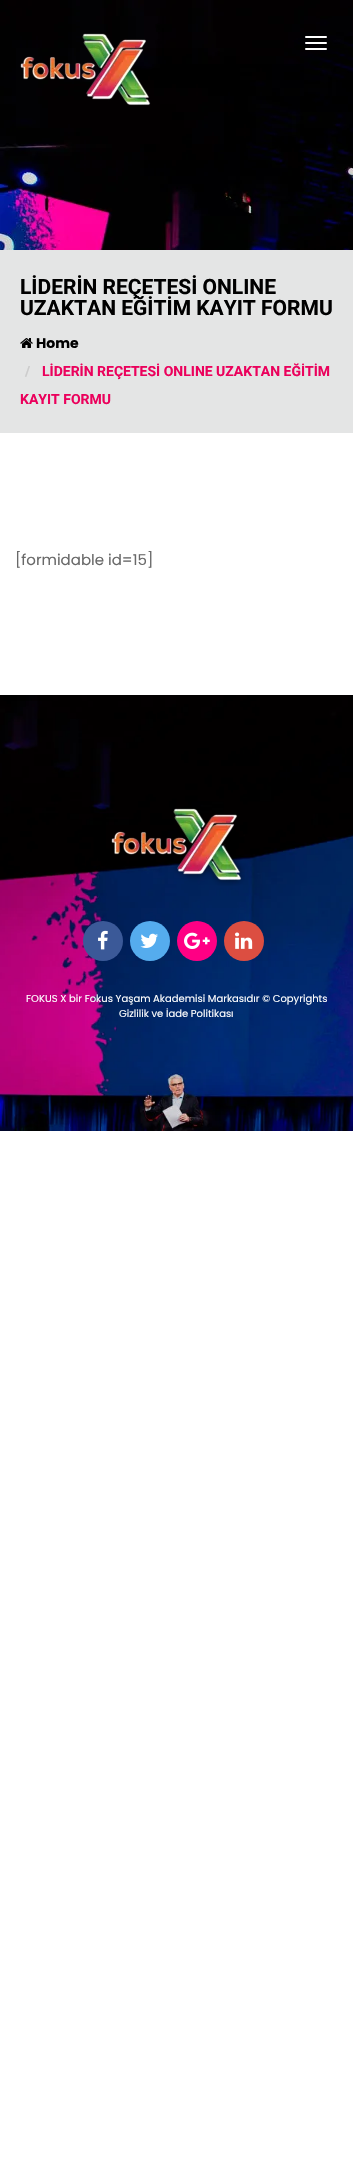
void draw(SkCanvas* canvas) {
	SkPaint paint;
	paint.setAntiAlias(true);
	canvas->clear(0xffffffff);
	canvas->drawImageRect(SkImages::DeferredFromEncodedData(SkData::MakeFromFileName("img2.png")), SkRect::MakeXYWH(0, 0, 353, 250), SkSamplingOptions());
	canvas->drawImageRect(SkImages::DeferredFromEncodedData(SkData::MakeFromFileName("img1.png")), SkRect::MakeXYWH(20, 33, 131, 73), SkSamplingOptions());
	paint.setColor(0xffffffff);
	canvas->drawRoundRect(SkRect::MakeXYWH(305, 36, 22, 2), 1, 1, paint);
	canvas->drawRoundRect(SkRect::MakeXYWH(305, 42, 22, 2), 1, 1, paint);
	canvas->drawRoundRect(SkRect::MakeXYWH(305, 48, 22, 2), 1, 1, paint);
	paint.setColor(0xffe4e5e5);
	canvas->drawRect(SkRect::MakeXYWH(0, 250, 353, 183), paint);
	SkFont f1(fontMgr->matchFamilyStyle("Roboto", SkFontStyle::Bold()), 21);
	f1.setSubpixel(true);
	paint.setColor(0xff000000);
	canvas->drawString("LİDERİN REÇETESİ ONLINE", 20, 294, f1, paint);
	canvas->drawString("UZAKTAN EĞİTİM KAYIT FORMU", 20, 315, f1, paint);
	canvas->drawImageRect(SkImages::DeferredFromEncodedData(SkData::MakeFromFileName("img3.png")), SkRect::MakeXYWH(20, 338, 13, 10), SkSamplingOptions());
	SkFont f2(fontMgr->matchFamilyStyle("Poppins", SkFontStyle::Bold()), 14);
	f2.setSubpixel(true);
	canvas->drawString("Home", 36, 348, f2, paint);
	SkFont f3(fontMgr->matchFamilyStyle("Roboto", SkFontStyle::Bold()), 14);
	f3.setSubpixel(true);
	paint.setColor(0xffcccccc);
	canvas->drawString("/", 25, 376, f3, paint);
	paint.setColor(0xffeb015c);
	canvas->drawString("LİDERİN REÇETESİ ONLINE UZAKTAN EĞİTİM", 42, 376, f3, paint);
	canvas->drawString("KAYIT FORMU", 20, 404, f3, paint);
	SkFont f4(fontMgr->matchFamilyStyle("Poppins", SkFontStyle::Normal()), 15);
	f4.setSubpixel(true);
	paint.setColor(0xff696969);
	canvas->drawString("[formidable id=15]", 15, 565, f4, paint);
	canvas->drawImageRect(SkImages::DeferredFromEncodedData(SkData::MakeFromFileName("img4.png")), SkRect::MakeXYWH(0, 695, 353, 436), SkSamplingOptions());
	canvas->drawImageRect(SkImages::DeferredFromEncodedData(SkData::MakeFromFileName("img5.png")), SkRect::MakeXYWH(111, 808, 134, 78), SkSamplingOptions());
	paint.setColor(0xff3b5998);
	canvas->drawCircle(103, 941, 20, paint);
	canvas->drawImageRect(SkImages::DeferredFromEncodedData(SkData::MakeFromFileName("img6.png")), SkRect::MakeXYWH(98, 930, 10, 20), SkSamplingOptions());
	paint.setColor(0xff55acee);
	canvas->drawCircle(150, 941, 20, paint);
	canvas->drawImageRect(SkImages::DeferredFromEncodedData(SkData::MakeFromFileName("img7.png")), SkRect::MakeXYWH(140, 933, 18, 15), SkSamplingOptions());
	paint.setColor(0xffff0084);
	canvas->drawCircle(197, 941, 20, paint);
	canvas->drawImageRect(SkImages::DeferredFromEncodedData(SkData::MakeFromFileName("img8.png")), SkRect::MakeXYWH(184, 932, 26, 17), SkSamplingOptions());
	paint.setColor(0xffdc4e41);
	canvas->drawCircle(244, 941, 20, paint);
	canvas->drawImageRect(SkImages::DeferredFromEncodedData(SkData::MakeFromFileName("img9.png")), SkRect::MakeXYWH(235, 932, 18, 17), SkSamplingOptions());
	SkFont f5(fontMgr->matchFamilyStyle("Poppins", SkFontStyle::Normal()), 10);
	f5.setSubpixel(true);
	paint.setColor(0xffffffff);
	canvas->drawString("FOKUS X bir Fokus Yaşam Akademisi Markasıdır © Copyrights", 26, 1002, f5, paint);
	canvas->drawString("Gizlilik ve İade Politikası", 119, 1017, f5, paint);
}
